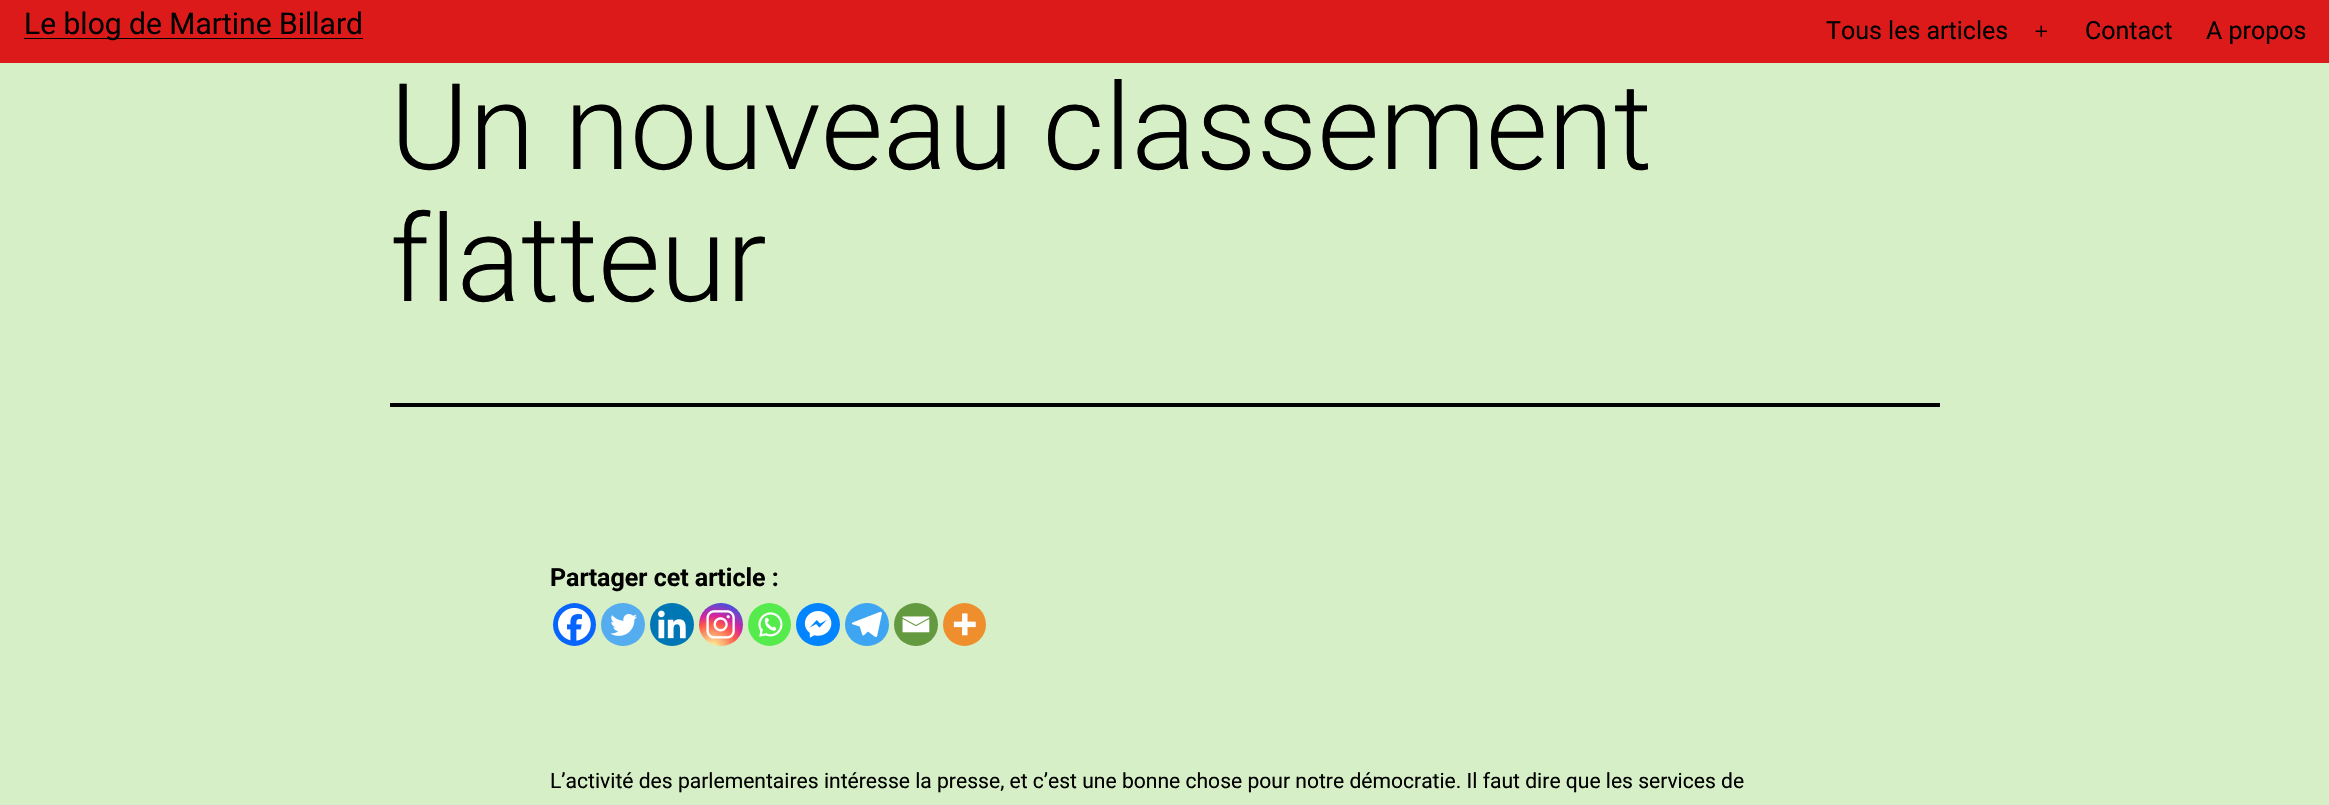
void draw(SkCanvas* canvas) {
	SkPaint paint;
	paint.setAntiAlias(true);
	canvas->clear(0xffd7efc6);
	paint.setColor(0xffdd1a1a);
	canvas->drawRect(SkRect::MakeXYWH(0, 0, 2329, 63), paint);
	paint.setColor(0xff000000);
	canvas->drawRect(SkRect::MakeXYWH(24, 38, 339, 1), paint);
	SkFont f1(fontMgr->matchFamilyStyle("Roboto", SkFontStyle::Normal()), 30);
	f1.setSubpixel(true);
	canvas->drawString("Le blog de Martine Billard", 24, 34, f1, paint);
	SkFont f2(fontMgr->matchFamilyStyle("Roboto", SkFontStyle::Normal()), 25);
	f2.setSubpixel(true);
	canvas->drawString("Tous les articles", 1826, 39, f2, paint);
	canvas->drawImageRect(SkImages::DeferredFromEncodedData(SkData::MakeFromFileName("img1.png")), SkRect::MakeXYWH(2035, 25, 12, 12), SkSamplingOptions());
	canvas->drawString("Contact", 2085, 39, f2, paint);
	canvas->drawString("A propos", 2206, 39, f2, paint);
	canvas->drawRect(SkRect::MakeXYWH(390, 403, 1550, 4), paint);
	SkFont f3(fontMgr->matchFamilyStyle("Roboto", SkFontStyle(300, SkFontStyle::kNormal_Width, SkFontStyle::kUpright_Slant)), 120);
	f3.setSubpixel(true);
	canvas->drawString("Un nouveau classement", 390, 169, f3, paint);
	canvas->drawString("flatteur", 390, 301, f3, paint);
	SkFont f4(fontMgr->matchFamilyStyle("Roboto", SkFontStyle::Bold()), 25);
	f4.setSubpixel(true);
	canvas->drawString("Partager cet article :", 550, 586, f4, paint);
	paint.setColor(0xff0765fe);
	canvas->drawCircle(574.5, 624.5, 21.5, paint);
	canvas->drawImageRect(SkImages::DeferredFromEncodedData(SkData::MakeFromFileName("img2.png")), SkRect::MakeXYWH(558, 608, 33, 33), SkSamplingOptions());
	paint.setColor(0xff55acee);
	canvas->drawRoundRect(SkRect::MakeXYWH(601, 603, 44, 43), 21.5, 21.5, paint);
	canvas->drawImageRect(SkImages::DeferredFromEncodedData(SkData::MakeFromFileName("img3.png")), SkRect::MakeXYWH(610, 614, 27, 22), SkSamplingOptions());
	paint.setColor(0xff0077b5);
	canvas->drawRoundRect(SkRect::MakeXYWH(650, 603, 44, 43), 21.5, 21.5, paint);
	canvas->drawImageRect(SkImages::DeferredFromEncodedData(SkData::MakeFromFileName("img4.png")), SkRect::MakeXYWH(658, 610, 28, 29), SkSamplingOptions());
	{
		const SkColor colors[] = {0xfffdf497, 0xfffdf497, 0xfffd5949, 0xffd6249f, 0xff285aeb};
		const float stops[] = {0, 0.05, 0.45, 0.6, 0.9};
		paint.setShader(SkGradientShader::MakeRadial({712, 649}, 56, colors, stops, 5, SkTileMode::kClamp));
		paint.setAlpha(255);
	}
	canvas->drawRoundRect(SkRect::MakeXYWH(699, 603, 44, 43), 21.5, 21.5, paint);
	canvas->drawImageRect(SkImages::DeferredFromEncodedData(SkData::MakeFromFileName("img5.png")), SkRect::MakeXYWH(706, 610, 29, 29), SkSamplingOptions());
	paint.setShader(nullptr);
	paint.setColor(0xff55eb4c);
	canvas->drawCircle(769.5, 624.5, 21.5, paint);
	canvas->drawImageRect(SkImages::DeferredFromEncodedData(SkData::MakeFromFileName("img6.png")), SkRect::MakeXYWH(758, 612, 25, 25), SkSamplingOptions());
	paint.setColor(0xff0084ff);
	canvas->drawRoundRect(SkRect::MakeXYWH(796, 603, 44, 43), 21.5, 21.5, paint);
	canvas->drawImageRect(SkImages::DeferredFromEncodedData(SkData::MakeFromFileName("img7.png")), SkRect::MakeXYWH(804, 611, 28, 27), SkSamplingOptions());
	paint.setColor(0xff3da5f1);
	canvas->drawRoundRect(SkRect::MakeXYWH(845, 603, 44, 43), 21.5, 21.5, paint);
	canvas->drawImageRect(SkImages::DeferredFromEncodedData(SkData::MakeFromFileName("img8.png")), SkRect::MakeXYWH(851, 611, 31, 26), SkSamplingOptions());
	paint.setColor(0xff649a3f);
	canvas->drawRoundRect(SkRect::MakeXYWH(894, 603, 44, 43), 21.5, 21.5, paint);
	canvas->drawImageRect(SkImages::DeferredFromEncodedData(SkData::MakeFromFileName("img9.png")), SkRect::MakeXYWH(902, 616, 28, 17), SkSamplingOptions());
	paint.setColor(0xffee8e2d);
	canvas->drawCircle(964.5, 624.5, 21.5, paint);
	canvas->drawImageRect(SkImages::DeferredFromEncodedData(SkData::MakeFromFileName("img10.png")), SkRect::MakeXYWH(953, 613, 23, 23), SkSamplingOptions());
	SkFont f5(fontMgr->matchFamilyStyle("Roboto", SkFontStyle::Normal()), 21.08);
	f5.setSubpixel(true);
	paint.setColor(0xff000000);
	canvas->drawString("L’activité des parlementaires intéresse la presse, et c’est une bonne chose pour notre démocratie. Il faut dire que les services de", 550, 788, f5, paint);
}
